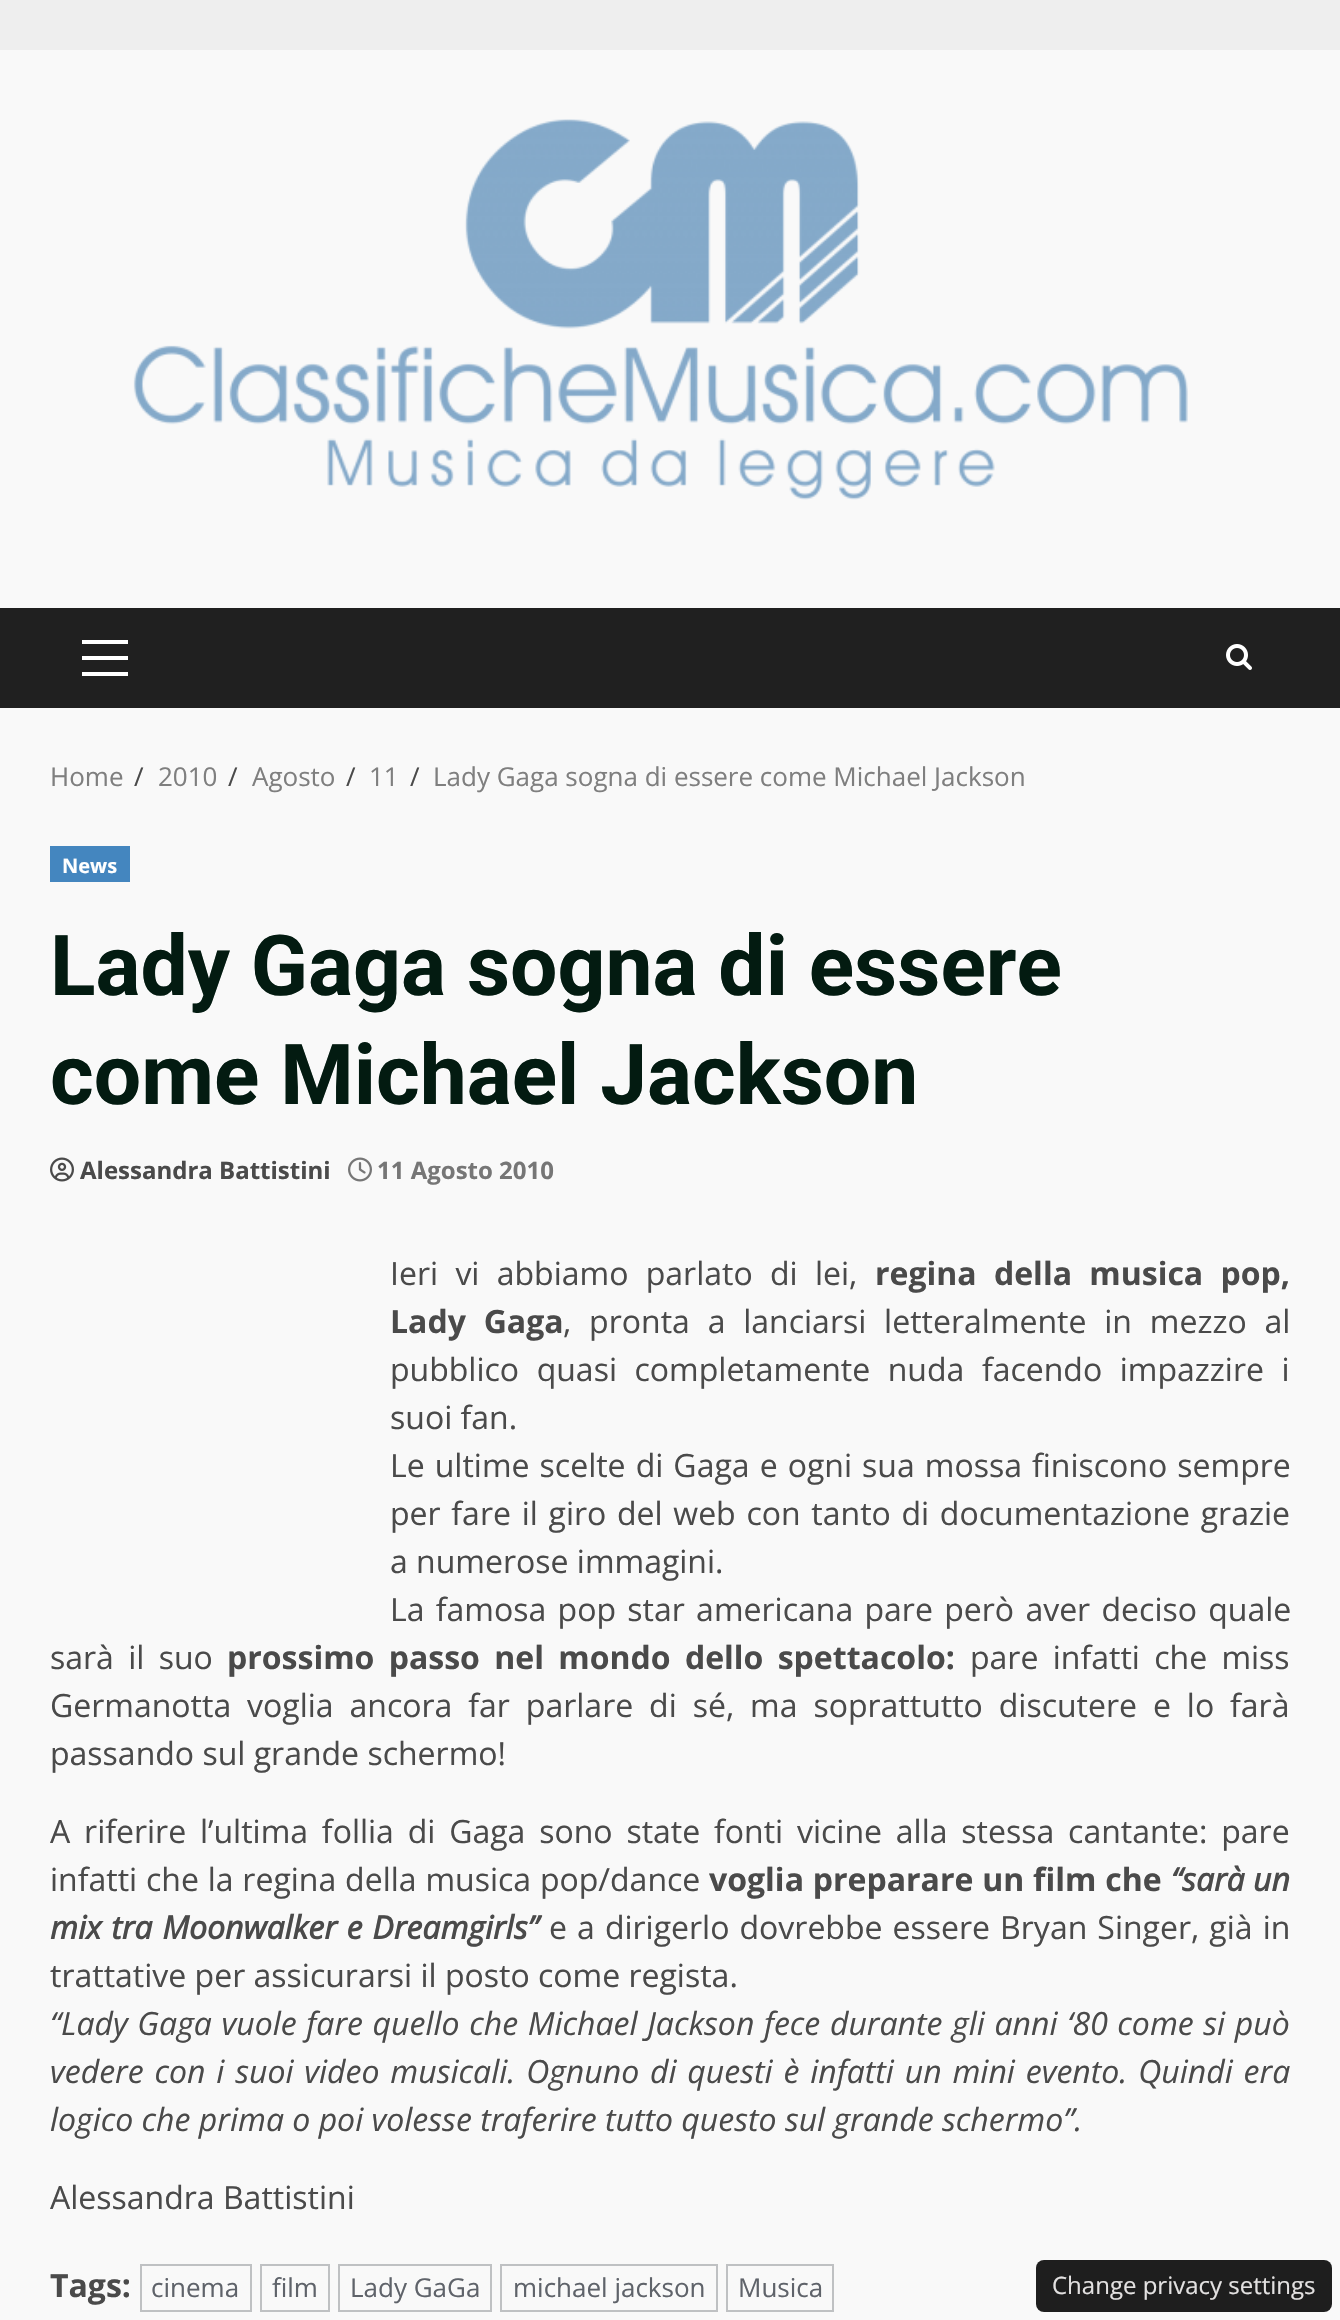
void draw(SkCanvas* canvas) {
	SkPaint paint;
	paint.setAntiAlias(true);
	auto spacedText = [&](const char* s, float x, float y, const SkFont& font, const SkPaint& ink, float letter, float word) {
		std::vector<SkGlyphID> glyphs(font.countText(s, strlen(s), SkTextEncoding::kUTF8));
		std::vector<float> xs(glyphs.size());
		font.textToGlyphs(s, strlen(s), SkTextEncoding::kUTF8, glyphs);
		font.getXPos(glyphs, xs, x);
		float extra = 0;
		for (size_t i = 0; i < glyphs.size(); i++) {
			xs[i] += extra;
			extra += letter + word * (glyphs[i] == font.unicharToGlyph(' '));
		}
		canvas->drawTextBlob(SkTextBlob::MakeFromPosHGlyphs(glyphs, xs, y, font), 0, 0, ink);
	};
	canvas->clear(0xffeeeeee);
	paint.setColor(0xfff9f9f9);
	canvas->drawRect(SkRect::MakeXYWH(0, 50, 1340, 2270), paint);
	canvas->drawImageRect(SkImages::DeferredFromEncodedData(SkData::MakeFromFileName("img1.png")), SkRect::MakeXYWH(133, 119, 1055, 381), SkSamplingOptions());
	paint.setColor(0xff202020);
	canvas->drawRect(SkRect::MakeXYWH(0, 608, 1340, 100), paint);
	paint.setColor(0xffffffff);
	canvas->drawRect(SkRect::MakeXYWH(82, 656, 46, 4), paint);
	canvas->drawRect(SkRect::MakeXYWH(82, 640, 46, 4), paint);
	canvas->drawRect(SkRect::MakeXYWH(82, 672, 46, 4), paint);
	canvas->drawImageRect(SkImages::DeferredFromEncodedData(SkData::MakeFromFileName("img2.png")), SkRect::MakeXYWH(1226, 644, 26, 26), SkSamplingOptions());
	SkFont f1(fontMgr->matchFamilyStyle("Open Sans", SkFontStyle::Normal()), 26);
	f1.setSubpixel(true);
	paint.setColor(0xff7f7f7f);
	canvas->drawString("Home", 50, 786, f1, paint);
	paint.setColor(0xff4a4a4a);
	canvas->drawString("/", 134, 786, f1, paint);
	paint.setColor(0xff7f7f7f);
	canvas->drawString("2010", 158, 786, f1, paint);
	paint.setColor(0xff4a4a4a);
	canvas->drawString("/", 228, 786, f1, paint);
	paint.setColor(0xff7f7f7f);
	canvas->drawString("Agosto", 252, 786, f1, paint);
	paint.setColor(0xff4a4a4a);
	canvas->drawString("/", 346, 786, f1, paint);
	paint.setColor(0xff7f7f7f);
	canvas->drawString("11", 369, 786, f1, paint);
	paint.setColor(0xff4a4a4a);
	canvas->drawString("/", 410, 786, f1, paint);
	paint.setColor(0xff7f7f7f);
	canvas->drawString("Lady Gaga sogna di essere come Michael Jackson", 433, 786, f1, paint);
	paint.setColor(0xff4486bf);
	canvas->drawRect(SkRect::MakeXYWH(50, 846, 80, 36), paint);
	SkFont f2(fontMgr->matchFamilyStyle("Open Sans", SkFontStyle::Bold()), 20);
	f2.setSubpixel(true);
	paint.setColor(0xffffffff);
	canvas->drawString("News", 62, 873, f2, paint);
	SkFont f3(fontMgr->matchFamilyStyle("Roboto", SkFontStyle::Bold()), 84);
	f3.setSubpixel(true);
	paint.setColor(0xff031b11);
	canvas->drawString("Lady Gaga sogna di essere", 50, 995, f3, paint);
	canvas->drawString("come Michael Jackson", 50, 1104, f3, paint);
	canvas->drawImageRect(SkImages::DeferredFromEncodedData(SkData::MakeFromFileName("img3.png")), SkRect::MakeXYWH(50, 1157, 24, 25), SkSamplingOptions());
	SkFont f4(fontMgr->matchFamilyStyle("Open Sans", SkFontStyle::Bold()), 24);
	f4.setSubpixel(true);
	paint.setColor(0xff4a4a4a);
	canvas->drawString("Alessandra Battistini", 80, 1179, f4, paint);
	canvas->drawImageRect(SkImages::DeferredFromEncodedData(SkData::MakeFromFileName("img4.png")), SkRect::MakeXYWH(348, 1157, 24, 25), SkSamplingOptions());
	paint.setColor(0xff767676);
	canvas->drawString("11 Agosto 2010", 377, 1179, f4, paint);
	SkFont f5(fontMgr->matchFamilyStyle("Open Sans", SkFontStyle::Normal()), 32);
	f5.setSubpixel(true);
	paint.setColor(0xff4a4a4a);
	spacedText("Ieri vi abbiamo parlato di lei,", 390, 1285, f5, paint, 0, 9);
	SkFont f6(fontMgr->matchFamilyStyle("Open Sans", SkFontStyle::Bold()), 32);
	f6.setSubpixel(true);
	spacedText("regina della musica pop,", 875, 1285, f6, paint, 0, 9);
	spacedText("Lady Gaga", 390, 1333, f6, paint, 0, 9.5);
	spacedText(", pronta a lanciarsi letteralmente in mezzo al", 563, 1333, f5, paint, 0, 9.5);
	spacedText("pubblico quasi completamente nuda facendo impazzire i", 390, 1381, f5, paint, 0, 9.25);
	canvas->drawString("suoi fan.", 390, 1429, f5, paint);
	spacedText("Le ultime scelte di Gaga e ogni sua mossa finiscono sempre", 390, 1477, f5, paint, 0, 1.75);
	spacedText("per fare il giro del web con tanto di documentazione grazie", 390, 1525, f5, paint, 0, 2.4);
	canvas->drawString("a numerose immagini.", 390, 1573, f5, paint);
	spacedText("La famosa pop star americana pare però aver deciso quale", 390, 1621, f5, paint, 0, 3);
	spacedText("sarà il suo", 50, 1669, f5, paint, 0, 6);
	spacedText("prossimo passo nel mondo dello spettacolo:", 227, 1669, f6, paint, 0, 6);
	spacedText("pare infatti che miss", 970, 1669, f5, paint, 0, 6);
	spacedText("Germanotta voglia ancora far parlare di sé, ma soprattutto discutere e lo farà", 50, 1717, f5, paint, 0, 7.6);
	canvas->drawString("passando sul grande schermo!", 50, 1765, f5, paint);
	spacedText("A riferire l’ultima follia di Gaga sono state fonti vicine alla stessa cantante: pare", 50, 1843, f5, paint, 0, 5.5);
	spacedText("infatti che la regina della musica pop/dance", 50, 1891, f5, paint, 0, 0.5);
	spacedText("voglia preparare un film che", 709, 1891, f6, paint, 0, 0.5);
	SkFont f7(fontMgr->matchFamilyStyle("Open Sans", SkFontStyle::BoldItalic()), 32);
	f7.setSubpixel(true);
	canvas->drawString("“sarà un", 1171, 1891, f7, paint);
	spacedText("mix tra Moonwalker e Dreamgirls”", 50, 1939, f7, paint, 0, 1.5);
	spacedText("e a dirigerlo dovrebbe essere Bryan Singer, già in", 549, 1939, f5, paint, 0, 1.75);
	canvas->drawString("trattative per assicurarsi il posto come regista.", 50, 1987, f5, paint);
	SkFont f8(fontMgr->matchFamilyStyle("Open Sans", SkFontStyle::Italic()), 32);
	f8.setSubpixel(true);
	spacedText("“Lady Gaga vuole fare quello che Michael Jackson fece durante gli anni ‘80 come si può", 50, 2035, f8, paint, 0, 1.3);
	spacedText("vedere con i suoi video musicali. Ognuno di questi è infatti un mini evento. Quindi era", 50, 2083, f8, paint, 0, 2.5);
	canvas->drawString("logico che prima o poi volesse traferire tutto questo sul grande schermo”.", 50, 2131, f8, paint);
	canvas->drawString("Alessandra Battistini", 50, 2209, f5, paint);
	canvas->drawString("Tags:", 50, 2297, f6, paint);
	paint.setStroke(true);
	paint.setStrokeWidth(2);
	paint.setColor(0xffbfc1c3);
	canvas->drawRect(SkRect::MakeXYWH(141, 2265, 110, 46), paint);
	paint.setStroke(false);
	paint.setColor(0xff5f636a);
	canvas->drawString("cinema", 151, 2297, f1, paint);
	paint.setStroke(true);
	paint.setColor(0xffbfc1c3);
	canvas->drawRect(SkRect::MakeXYWH(261, 2265, 68, 46), paint);
	paint.setStroke(false);
	paint.setColor(0xff5f636a);
	canvas->drawString("film", 272, 2297, f1, paint);
	paint.setStroke(true);
	paint.setColor(0xffbfc1c3);
	canvas->drawRect(SkRect::MakeXYWH(339, 2265, 152, 46), paint);
	paint.setStroke(false);
	paint.setColor(0xff5f636a);
	canvas->drawString("Lady GaGa", 350, 2297, f1, paint);
	paint.setStroke(true);
	paint.setColor(0xffbfc1c3);
	canvas->drawRect(SkRect::MakeXYWH(501, 2265, 216, 46), paint);
	paint.setStroke(false);
	paint.setColor(0xff5f636a);
	canvas->drawString("michael jackson", 513, 2297, f1, paint);
	paint.setStroke(true);
	paint.setColor(0xffbfc1c3);
	canvas->drawRect(SkRect::MakeXYWH(727, 2265, 106, 46), paint);
	paint.setStroke(false);
	paint.setColor(0xff5f636a);
	canvas->drawString("Musica", 738, 2297, f1, paint);
	paint.setColor(0xff1e1e1e);
	canvas->drawRoundRect(SkRect::MakeXYWH(1036, 2260, 296, 52), 8, 8, paint);
	SkFont f9(fontMgr->matchFamilyStyle("Open Sans", SkFontStyle::Normal()), 24);
	f9.setSubpixel(true);
	paint.setColor(0xffe3e1e1);
	canvas->drawString("Change privacy settings", 1052, 2294, f9, paint);
}
